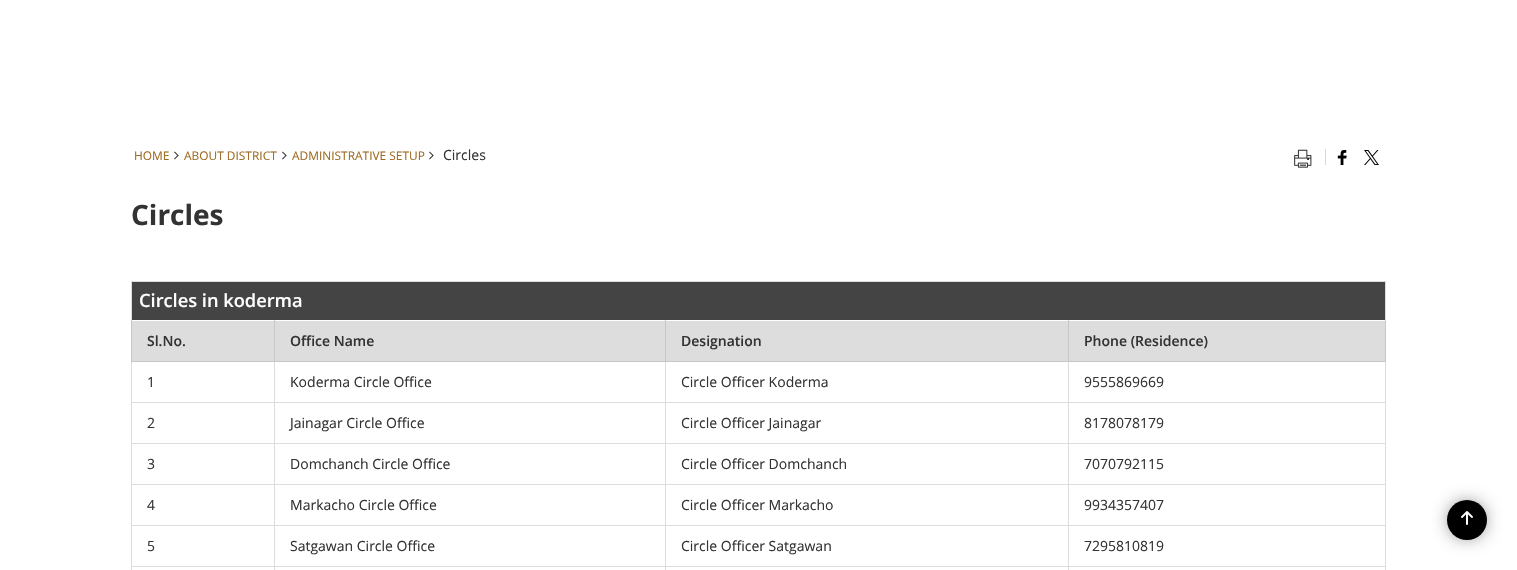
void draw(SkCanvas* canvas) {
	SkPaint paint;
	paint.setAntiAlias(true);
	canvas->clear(0xffffffff);
	SkFont f1(fontMgr->matchFamilyStyle("Open Sans", SkFontStyle::Normal()), 11.9);
	f1.setSubpixel(true);
	paint.setColor(0xff9e6b22);
	canvas->drawString("HOME", 134, 160, f1, paint);
	canvas->drawImageRect(SkImages::DeferredFromEncodedData(SkData::MakeFromFileName("img1.png")), SkRect::MakeXYWH(174, 151, 5, 9), SkSamplingOptions());
	canvas->drawString("ABOUT DISTRICT", 184, 160, f1, paint);
	canvas->drawImageRect(SkImages::DeferredFromEncodedData(SkData::MakeFromFileName("img1.png")), SkRect::MakeXYWH(282, 151, 5, 9), SkSamplingOptions());
	canvas->drawString("ADMINISTRATIVE SETUP", 292, 160, f1, paint);
	canvas->drawImageRect(SkImages::DeferredFromEncodedData(SkData::MakeFromFileName("img1.png")), SkRect::MakeXYWH(429, 151, 5, 9), SkSamplingOptions());
	SkFont f2(fontMgr->matchFamilyStyle("Open Sans", SkFontStyle::Normal()), 14);
	f2.setSubpixel(true);
	paint.setColor(0xff333333);
	canvas->drawString("Circles", 443, 160, f2, paint);
	canvas->drawImageRect(SkImages::DeferredFromEncodedData(SkData::MakeFromFileName("img2.png")), SkRect::MakeXYWH(1294, 149, 18, 19), SkSamplingOptions());
	paint.setColor(0xffd8d8d8);
	canvas->drawRect(SkRect::MakeXYWH(1325, 149, 1, 16), paint);
	canvas->drawImageRect(SkImages::DeferredFromEncodedData(SkData::MakeFromFileName("img3.png")), SkRect::MakeXYWH(1337, 150, 10, 15), SkSamplingOptions());
	canvas->drawImageRect(SkImages::DeferredFromEncodedData(SkData::MakeFromFileName("img4.png")), SkRect::MakeXYWH(1364, 150, 15, 15), SkSamplingOptions());
	SkFont f3(fontMgr->matchFamilyStyle("Open Sans", SkFontStyle::Bold()), 28);
	f3.setSubpixel(true);
	paint.setColor(0xff333333);
	canvas->drawString("Circles", 131, 225, f3, paint);
	paint.setColor(0xffdddddd);
	canvas->drawRect(SkRect::MakeXYWH(131, 281, 1255, 1), paint);
	canvas->drawRect(SkRect::MakeXYWH(1385, 281, 1, 289), paint);
	canvas->drawRect(SkRect::MakeXYWH(131, 281, 1, 289), paint);
	paint.setColor(0xff444444);
	canvas->drawRect(SkRect::MakeXYWH(132, 282, 1253, 38), paint);
	SkFont f4(fontMgr->matchFamilyStyle("Open Sans", SkFontStyle(600, SkFontStyle::kNormal_Width, SkFontStyle::kUpright_Slant)), 18.25);
	f4.setSubpixel(true);
	paint.setColor(0xffffffff);
	canvas->drawString("Circles in koderma", 139, 307, f4, paint);
	paint.setColor(0xffdddddd);
	canvas->drawRect(SkRect::MakeXYWH(132, 321, 142, 40), paint);
	paint.setColor(0xffc7c7c7);
	canvas->drawRect(SkRect::MakeXYWH(1385, 320, 1, 42), paint);
	paint.setColor(0xffdddddd);
	canvas->drawRect(SkRect::MakeXYWH(131, 402, 1255, 1), paint);
	canvas->drawRect(SkRect::MakeXYWH(131, 443, 1255, 1), paint);
	canvas->drawRect(SkRect::MakeXYWH(131, 484, 1255, 1), paint);
	canvas->drawRect(SkRect::MakeXYWH(131, 525, 1255, 1), paint);
	canvas->drawRect(SkRect::MakeXYWH(131, 566, 1255, 1), paint);
	canvas->drawRect(SkRect::MakeXYWH(1068, 566, 1, 4), paint);
	canvas->drawRect(SkRect::MakeXYWH(1068, 525, 1, 42), paint);
	canvas->drawRect(SkRect::MakeXYWH(1068, 484, 1, 42), paint);
	canvas->drawRect(SkRect::MakeXYWH(1068, 443, 1, 42), paint);
	canvas->drawRect(SkRect::MakeXYWH(1068, 361, 1, 83), paint);
	paint.setColor(0xffc7c7c7);
	canvas->drawRect(SkRect::MakeXYWH(1068, 361, 318, 1), paint);
	canvas->drawRect(SkRect::MakeXYWH(1068, 320, 1, 42), paint);
	paint.setColor(0xffdddddd);
	canvas->drawRect(SkRect::MakeXYWH(665, 566, 1, 4), paint);
	canvas->drawRect(SkRect::MakeXYWH(665, 525, 1, 42), paint);
	canvas->drawRect(SkRect::MakeXYWH(665, 484, 1, 42), paint);
	canvas->drawRect(SkRect::MakeXYWH(665, 443, 1, 42), paint);
	canvas->drawRect(SkRect::MakeXYWH(665, 361, 1, 83), paint);
	paint.setColor(0xffc7c7c7);
	canvas->drawRect(SkRect::MakeXYWH(665, 361, 404, 1), paint);
	canvas->drawRect(SkRect::MakeXYWH(665, 320, 1, 42), paint);
	paint.setColor(0xffdddddd);
	canvas->drawRect(SkRect::MakeXYWH(274, 566, 1, 4), paint);
	canvas->drawRect(SkRect::MakeXYWH(274, 525, 1, 42), paint);
	canvas->drawRect(SkRect::MakeXYWH(274, 484, 1, 42), paint);
	canvas->drawRect(SkRect::MakeXYWH(274, 443, 1, 42), paint);
	canvas->drawRect(SkRect::MakeXYWH(274, 361, 1, 83), paint);
	paint.setColor(0xffc7c7c7);
	canvas->drawRect(SkRect::MakeXYWH(274, 361, 392, 1), paint);
	canvas->drawRect(SkRect::MakeXYWH(274, 320, 1, 42), paint);
	canvas->drawRect(SkRect::MakeXYWH(131, 361, 144, 1), paint);
	canvas->drawRect(SkRect::MakeXYWH(131, 320, 1, 42), paint);
	SkFont f5(fontMgr->matchFamilyStyle("Open Sans", SkFontStyle(600, SkFontStyle::kNormal_Width, SkFontStyle::kUpright_Slant)), 14);
	f5.setSubpixel(true);
	paint.setColor(0xff333333);
	canvas->drawString("Sl.No.", 147, 346, f5, paint);
	paint.setColor(0xffdddddd);
	canvas->drawRect(SkRect::MakeXYWH(275, 321, 390, 40), paint);
	paint.setColor(0xff333333);
	canvas->drawString("Office Name", 290, 346, f5, paint);
	paint.setColor(0xffdddddd);
	canvas->drawRect(SkRect::MakeXYWH(666, 321, 402, 40), paint);
	paint.setColor(0xff333333);
	canvas->drawString("Designation", 681, 346, f5, paint);
	paint.setColor(0xffdddddd);
	canvas->drawRect(SkRect::MakeXYWH(1069, 321, 316, 40), paint);
	paint.setColor(0xff333333);
	canvas->drawString("Phone (Residence)", 1084, 346, f5, paint);
	canvas->drawString("1", 147, 387, f2, paint);
	canvas->drawString("Koderma Circle Office", 290, 387, f2, paint);
	canvas->drawString("Circle Officer Koderma", 681, 387, f2, paint);
	canvas->drawString("9555869669", 1084, 387, f2, paint);
	canvas->drawString("2", 147, 428, f2, paint);
	canvas->drawString("Jainagar Circle Office", 290, 428, f2, paint);
	canvas->drawString("Circle Officer Jainagar", 681, 428, f2, paint);
	canvas->drawString("8178078179", 1084, 428, f2, paint);
	canvas->drawString("3", 147, 469, f2, paint);
	canvas->drawString("Domchanch Circle Office", 290, 469, f2, paint);
	canvas->drawString("Circle Officer Domchanch", 681, 469, f2, paint);
	canvas->drawString("7070792115", 1084, 469, f2, paint);
	canvas->drawString("4", 147, 510, f2, paint);
	canvas->drawString("Markacho Circle Office", 290, 510, f2, paint);
	canvas->drawString("Circle Officer Markacho", 681, 510, f2, paint);
	canvas->drawString("9934357407", 1084, 510, f2, paint);
	canvas->drawString("5", 147, 551, f2, paint);
	canvas->drawString("Satgawan Circle Office", 290, 551, f2, paint);
	canvas->drawString("Circle Officer Satgawan", 681, 551, f2, paint);
	canvas->drawString("7295810819", 1084, 551, f2, paint);
	paint.setColor(0xff3c3c3c);
	paint.setMaskFilter(SkMaskFilter::MakeBlur(kNormal_SkBlurStyle, 9.5));
	canvas->drawRoundRect(SkRect::MakeXYWH(1452, 505, 30, 30), 15, 15, paint);
	paint.setMaskFilter(nullptr);
	paint.setColor(0xff000000);
	canvas->drawCircle(1467, 520, 20, paint);
	canvas->drawImageRect(SkImages::DeferredFromEncodedData(SkData::MakeFromFileName("img5.png")), SkRect::MakeXYWH(1461, 511, 12, 14), SkSamplingOptions());
}
